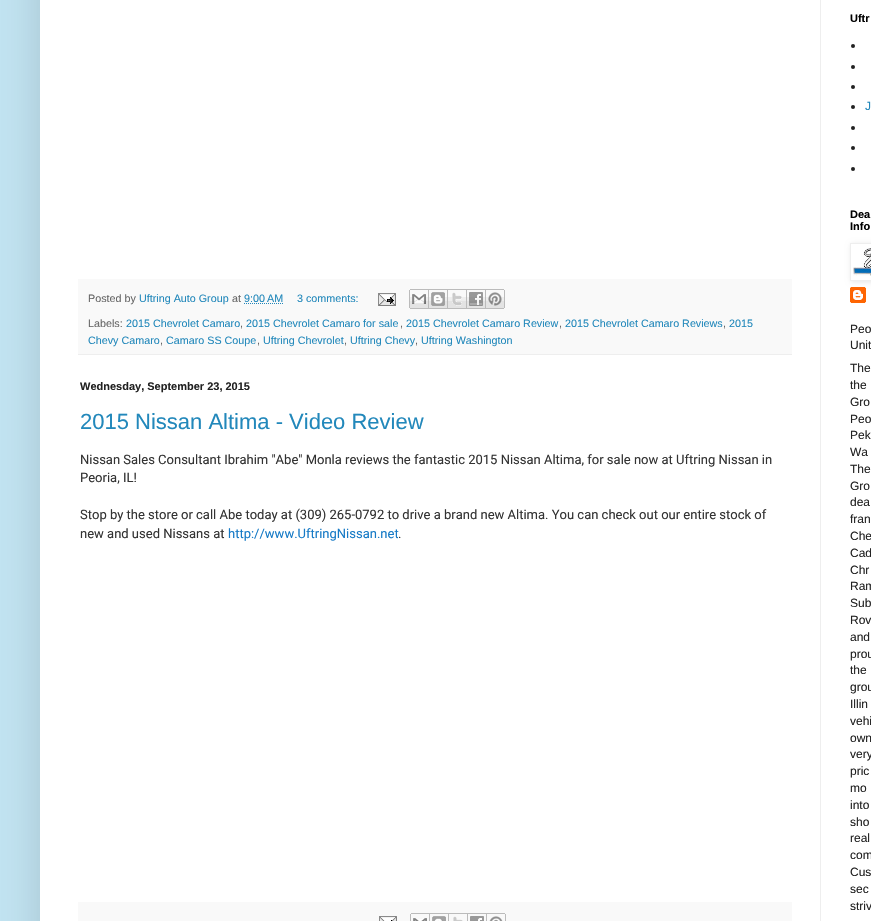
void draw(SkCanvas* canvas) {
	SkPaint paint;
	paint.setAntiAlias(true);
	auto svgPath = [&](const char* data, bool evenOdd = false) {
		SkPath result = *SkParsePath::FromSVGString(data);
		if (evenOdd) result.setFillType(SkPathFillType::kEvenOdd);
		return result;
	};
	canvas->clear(0xffc2e4f2);
	paint.setColor(0x26000000);
	paint.setMaskFilter(SkMaskFilter::MakeBlur(kNormal_SkBlurStyle, 20));
	canvas->drawRect(SkRect::MakeXYWH(40, -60, 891, 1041), paint);
	paint.setMaskFilter(nullptr);
	paint.setColor(0xffffffff);
	canvas->drawRect(SkRect::MakeXYWH(40, 0, 831, 921), paint);
	paint.setColor(0xffeeeeee);
	canvas->drawRect(SkRect::MakeXYWH(820, 0, 1, 921), paint);
	paint.setColor(0xfff9f9f9);
	canvas->drawRect(SkRect::MakeXYWH(78, 279, 714, 75), paint);
	paint.setColor(0xffeeeeee);
	canvas->drawRect(SkRect::MakeXYWH(78, 354, 714, 1), paint);
	SkFont f1(fontMgr->matchFamilyStyle("Liberation Sans", SkFontStyle::Normal()), 10.75);
	f1.setSubpixel(true);
	paint.setColor(0xff666666);
	canvas->drawString("Posted by", 88, 302, f1, paint);
	paint.setColor(0xff2288bb);
	canvas->drawString("Uftring Auto Group", 139, 302, f1, paint);
	paint.setColor(0xff666666);
	canvas->drawString("at", 232, 302, f1, paint);
	paint.setColor(0xff2288bb);
	canvas->drawString("9:00 AM", 244, 302, f1, paint);
	paint.setStroke(true);
	paint.setStrokeWidth(1);
	paint.setPathEffect(SkDashPathEffect::Make({{1, 1}}, 0));
	canvas->drawPath(svgPath("M244 303.5H283.5"), paint);
	paint.setPathEffect(nullptr);
	paint.setStroke(false);
	canvas->drawString("3 comments:", 297, 302, f1, paint);
	canvas->drawImageRect(SkImages::DeferredFromEncodedData(SkData::MakeFromFileName("img1.png")), SkRect::MakeXYWH(378, 293, 18, 13), SkSamplingOptions());
	canvas->drawImageRect(SkImages::DeferredFromEncodedData(SkData::MakeFromFileName("img2.png")), SkRect::MakeXYWH(409, 289, 20, 20), SkSamplingOptions());
	canvas->drawImageRect(SkImages::DeferredFromEncodedData(SkData::MakeFromFileName("img3.png")), SkRect::MakeXYWH(429, 289, 19, 20), SkSamplingOptions());
	canvas->drawImageRect(SkImages::DeferredFromEncodedData(SkData::MakeFromFileName("img4.png")), SkRect::MakeXYWH(448, 289, 19, 20), SkSamplingOptions());
	canvas->drawImageRect(SkImages::DeferredFromEncodedData(SkData::MakeFromFileName("img5.png")), SkRect::MakeXYWH(467, 289, 19, 20), SkSamplingOptions());
	canvas->drawImageRect(SkImages::DeferredFromEncodedData(SkData::MakeFromFileName("img6.png")), SkRect::MakeXYWH(486, 289, 19, 20), SkSamplingOptions());
	paint.setColor(0xff666666);
	canvas->drawString("Labels:", 88, 327, f1, paint);
	paint.setColor(0xff2288bb);
	canvas->drawString("2015 Chevrolet Camaro", 126, 327, f1, paint);
	paint.setColor(0xff666666);
	canvas->drawString(",", 240, 327, f1, paint);
	paint.setColor(0xff2288bb);
	canvas->drawString("2015 Chevrolet Camaro for sale", 246, 327, f1, paint);
	paint.setColor(0xff666666);
	canvas->drawString(",", 400, 327, f1, paint);
	paint.setColor(0xff2288bb);
	canvas->drawString("2015 Chevrolet Camaro Review", 406, 327, f1, paint);
	paint.setColor(0xff666666);
	canvas->drawString(",", 559, 327, f1, paint);
	paint.setColor(0xff2288bb);
	canvas->drawString("2015 Chevrolet Camaro Reviews", 565, 327, f1, paint);
	paint.setColor(0xff666666);
	canvas->drawString(",", 723, 327, f1, paint);
	paint.setColor(0xff2288bb);
	canvas->drawString("2015", 729, 327, f1, paint);
	canvas->drawString("Chevy Camaro", 88, 344, f1, paint);
	paint.setColor(0xff666666);
	canvas->drawString(",", 160, 344, f1, paint);
	paint.setColor(0xff2288bb);
	canvas->drawString("Camaro SS Coupe", 166, 344, f1, paint);
	paint.setColor(0xff666666);
	canvas->drawString(",", 257, 344, f1, paint);
	paint.setColor(0xff2288bb);
	canvas->drawString("Uftring Chevrolet", 263, 344, f1, paint);
	paint.setColor(0xff666666);
	canvas->drawString(",", 344, 344, f1, paint);
	paint.setColor(0xff2288bb);
	canvas->drawString("Uftring Chevy", 350, 344, f1, paint);
	paint.setColor(0xff666666);
	canvas->drawString(",", 415, 344, f1, paint);
	paint.setColor(0xff2288bb);
	canvas->drawString("Uftring Washington", 421, 344, f1, paint);
	SkFont f2(fontMgr->matchFamilyStyle("Liberation Sans", SkFontStyle::Bold()), 11);
	f2.setSubpixel(true);
	paint.setColor(0xff222222);
	canvas->drawString("Wednesday, September 23, 2015", 80, 390, f2, paint);
	SkFont f3(fontMgr->matchFamilyStyle("Liberation Sans", SkFontStyle::Normal()), 22);
	f3.setSubpixel(true);
	paint.setColor(0xff2288bb);
	canvas->drawString("2015 Nissan Altima - Video Review", 80, 429, f3, paint);
	SkFont f4(fontMgr->matchFamilyStyle("Roboto", SkFontStyle::Normal()), 13);
	f4.setSubpixel(true);
	paint.setColor(0xff333333);
	canvas->drawString("Nissan Sales Consultant Ibrahim \"Abe\" Monla reviews the fantastic 2015 Nissan Altima, for sale now at Uftring Nissan in", 80, 464, f4, paint);
	canvas->drawString("Peoria, IL!", 80, 482, f4, paint);
	canvas->drawString("Stop by the store or call Abe today at (309) 265-0792 to drive a brand new Altima. You can check out our entire stock of", 80, 519, f4, paint);
	canvas->drawString("new and used Nissans at", 80, 538, f4, paint);
	paint.setColor(0xff167ac6);
	canvas->drawString("http://www.UftringNissan.net", 228, 538, f4, paint);
	paint.setColor(0xff333333);
	canvas->drawString(".", 398, 538, f4, paint);
	paint.setColor(0xffffffff);
	canvas->drawRect(SkRect::MakeXYWH(398, 537, 1, 4), paint);
	paint.setColor(0xfff9f9f9);
	canvas->drawRect(SkRect::MakeXYWH(78, 902, 714, 19), paint);
	canvas->drawImageRect(SkImages::DeferredFromEncodedData(SkData::MakeFromFileName("img7.png")), SkRect::MakeXYWH(379, 916, 18, 5), SkSamplingOptions());
	canvas->drawImageRect(SkImages::DeferredFromEncodedData(SkData::MakeFromFileName("img8.png")), SkRect::MakeXYWH(410, 913, 20, 8), SkSamplingOptions());
	canvas->drawImageRect(SkImages::DeferredFromEncodedData(SkData::MakeFromFileName("img9.png")), SkRect::MakeXYWH(430, 913, 19, 8), SkSamplingOptions());
	canvas->drawImageRect(SkImages::DeferredFromEncodedData(SkData::MakeFromFileName("img10.png")), SkRect::MakeXYWH(449, 913, 19, 8), SkSamplingOptions());
	canvas->drawImageRect(SkImages::DeferredFromEncodedData(SkData::MakeFromFileName("img11.png")), SkRect::MakeXYWH(468, 913, 19, 8), SkSamplingOptions());
	canvas->drawImageRect(SkImages::DeferredFromEncodedData(SkData::MakeFromFileName("img12.png")), SkRect::MakeXYWH(487, 913, 19, 8), SkSamplingOptions());
	paint.setColor(0xff000000);
	canvas->drawString("Uftr", 850, 22, f2, paint);
	paint.setColor(0xff222222);
	canvas->drawCircle(853, 46, 2, paint);
	canvas->drawCircle(853, 67, 2, paint);
	canvas->drawCircle(853, 87, 2, paint);
	canvas->drawCircle(853, 107, 2, paint);
	SkFont f5(fontMgr->matchFamilyStyle("Liberation Sans", SkFontStyle::Normal()), 12);
	f5.setSubpixel(true);
	paint.setColor(0xff2288bb);
	canvas->drawString("J", 865, 110, f5, paint);
	paint.setColor(0xff222222);
	canvas->drawCircle(853, 128, 2, paint);
	canvas->drawCircle(853, 148, 2, paint);
	canvas->drawCircle(853, 169, 2, paint);
	paint.setColor(0xff000000);
	canvas->drawString("Dea", 850, 218, f2, paint);
	canvas->drawString("Info", 850, 230, f2, paint);
	canvas->drawImageRect(SkImages::DeferredFromEncodedData(SkData::MakeFromFileName("img14.png")), SkRect::MakeXYWH(850, 287, 16, 16), SkSamplingOptions());
	canvas->save();
	canvas->clipPath(svgPath("M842 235H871V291H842ZM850 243H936V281H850Z", true), true);
	paint.setColor(0x1a000000);
	paint.setMaskFilter(SkMaskFilter::MakeBlur(kNormal_SkBlurStyle, 2.5));
	canvas->drawRect(SkRect::MakeXYWH(851, 244, 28, 38), paint);
	paint.setMaskFilter(nullptr);
	canvas->restore();
	paint.setStroke(true);
	paint.setColor(0xffeeeeee);
	canvas->drawRect(SkRect::MakeXYWH(850.5, 243.5, 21, 37), paint);
	canvas->drawImageRect(SkImages::DeferredFromEncodedData(SkData::MakeFromFileName("img13.png")), SkRect::MakeXYWH(853, 248, 18, 28), SkSamplingOptions());
	paint.setStroke(false);
	paint.setColor(0xff222222);
	canvas->drawString("Peo", 850, 333, f5, paint);
	canvas->drawString("Unit", 850, 349, f5, paint);
	canvas->drawString("The", 850, 372, f5, paint);
	canvas->drawString("the", 850, 389, f5, paint);
	canvas->drawString("Gro", 850, 406, f5, paint);
	canvas->drawString("Peo", 850, 423, f5, paint);
	canvas->drawString("Pek", 850, 439, f5, paint);
	canvas->drawString("Wa", 850, 456, f5, paint);
	canvas->drawString("The", 850, 473, f5, paint);
	canvas->drawString("Gro", 850, 490, f5, paint);
	canvas->drawString("dea", 850, 506, f5, paint);
	canvas->drawString("fran", 850, 523, f5, paint);
	canvas->drawString("Che", 850, 540, f5, paint);
	canvas->drawString("Cad", 850, 557, f5, paint);
	canvas->drawString("Chr", 850, 574, f5, paint);
	canvas->drawString("Ram", 850, 590, f5, paint);
	canvas->drawString("Sub", 850, 607, f5, paint);
	canvas->drawString("Rov", 850, 624, f5, paint);
	canvas->drawString("and", 850, 641, f5, paint);
	canvas->drawString("prou", 850, 658, f5, paint);
	canvas->drawString("the", 850, 674, f5, paint);
	canvas->drawString("grou", 850, 691, f5, paint);
	canvas->drawString("Illin", 850, 708, f5, paint);
	canvas->drawString("vehi", 850, 725, f5, paint);
	canvas->drawString("own", 850, 742, f5, paint);
	canvas->drawString("very", 850, 758, f5, paint);
	canvas->drawString("pric", 850, 775, f5, paint);
	canvas->drawString("mo", 850, 792, f5, paint);
	canvas->drawString("into", 850, 809, f5, paint);
	canvas->drawString("sho", 850, 826, f5, paint);
	canvas->drawString("real", 850, 842, f5, paint);
	canvas->drawString("com", 850, 859, f5, paint);
	canvas->drawString("Cus", 850, 876, f5, paint);
	canvas->drawString("sec", 850, 893, f5, paint);
	canvas->drawString("striv", 850, 910, f5, paint);
}
